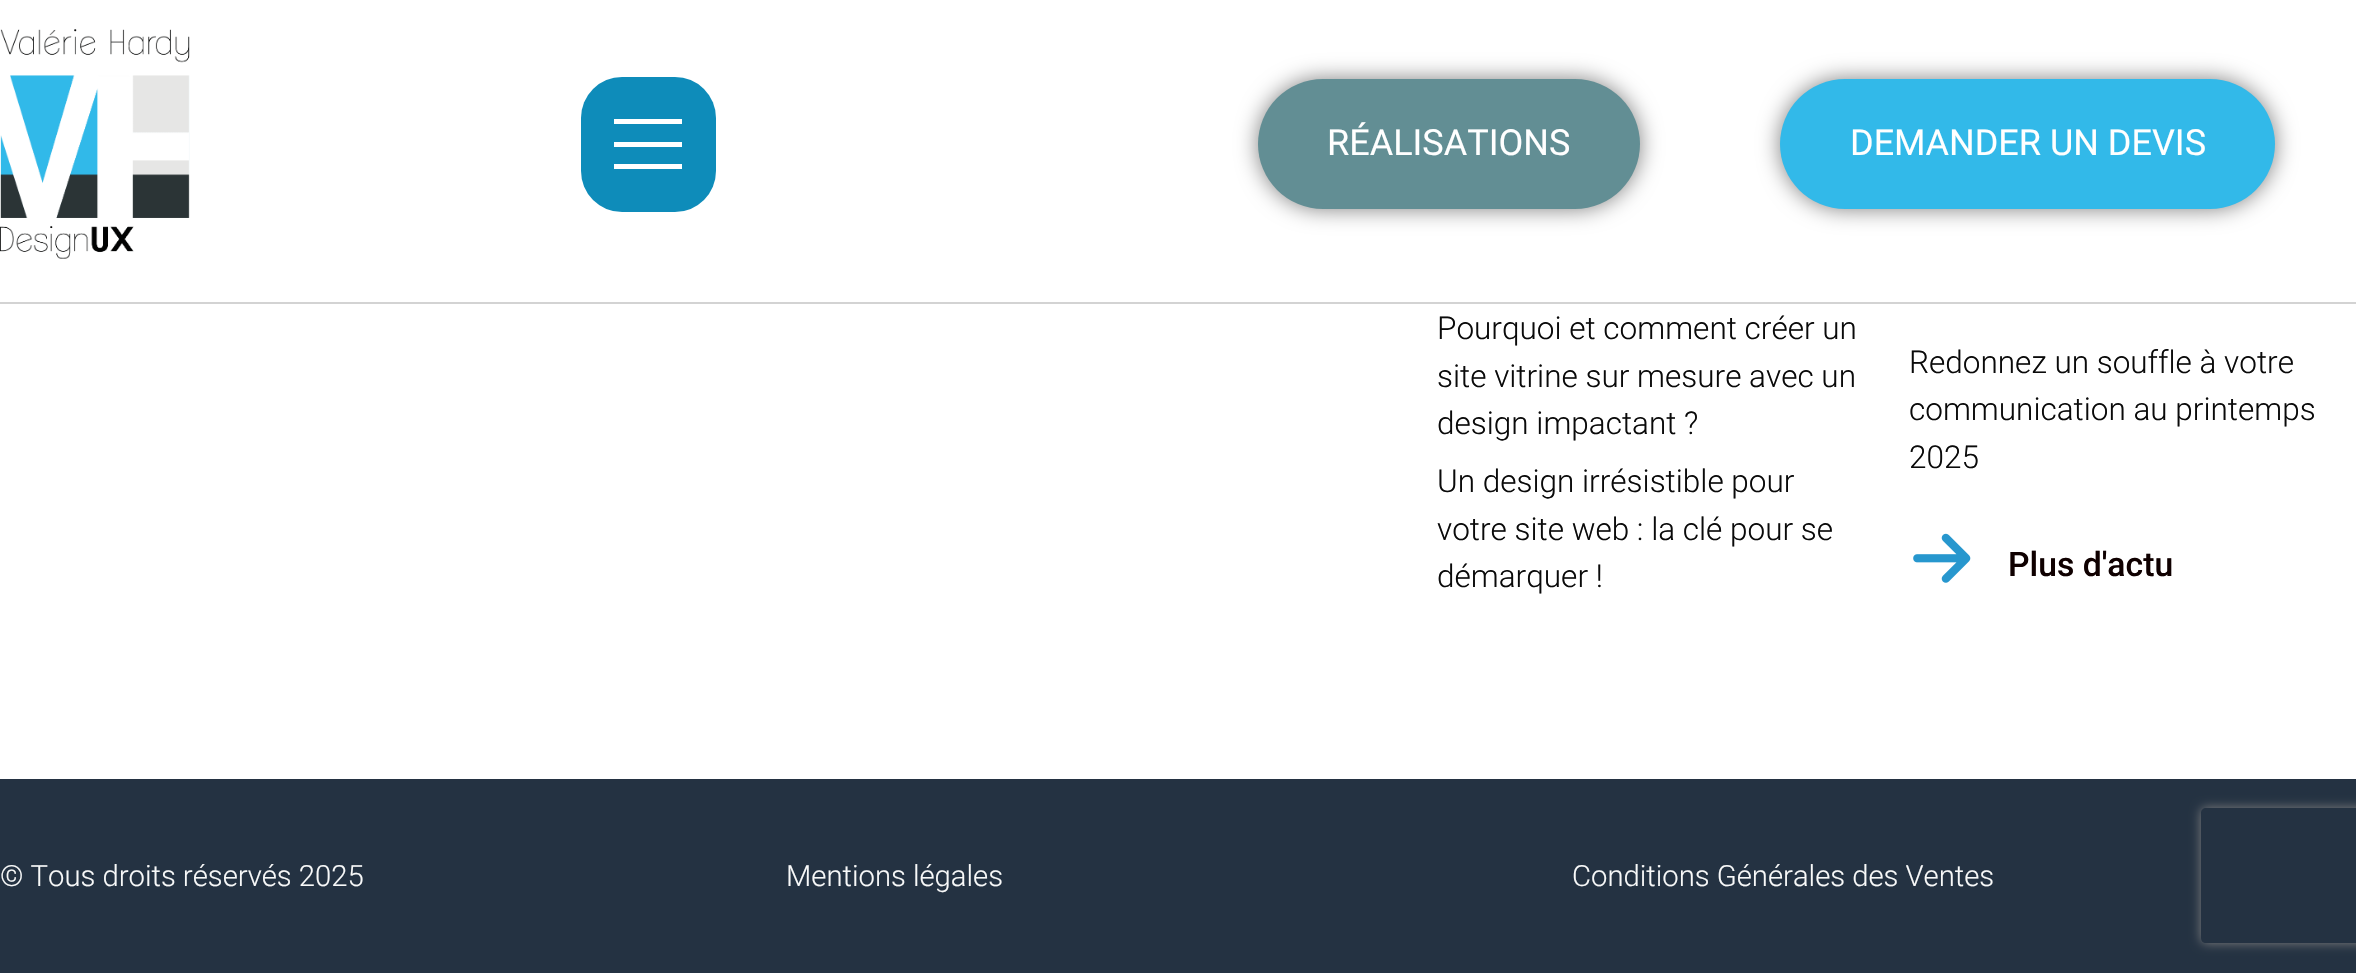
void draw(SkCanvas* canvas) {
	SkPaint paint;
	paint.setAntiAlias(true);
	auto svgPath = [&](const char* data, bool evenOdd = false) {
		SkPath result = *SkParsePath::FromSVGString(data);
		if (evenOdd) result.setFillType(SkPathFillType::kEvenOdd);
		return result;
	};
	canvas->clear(0xffffffff);
	paint.setColor(0xffd3d3d3);
	canvas->drawRect(SkRect::MakeXYWH(0, 302, 2356, 2), paint);
	canvas->drawImageRect(SkImages::DeferredFromEncodedData(SkData::MakeFromFileName("img1.png")), SkRect::MakeXYWH(0, 29, 190, 230), SkSamplingOptions());
	paint.setColor(0xff0e8cba);
	canvas->drawRoundRect(SkRect::MakeXYWH(581, 77, 135, 135), 41, 41, paint);
	paint.setColor(0xffffffff);
	canvas->drawRect(SkRect::MakeXYWH(614, 142, 68, 5), paint);
	canvas->drawRect(SkRect::MakeXYWH(614, 119, 68, 5), paint);
	canvas->drawRect(SkRect::MakeXYWH(614, 164, 68, 5), paint);
	paint.setColor(0x80000000);
	paint.setMaskFilter(SkMaskFilter::MakeBlur(kNormal_SkBlurStyle, 11));
	canvas->drawRoundRect(SkRect::MakeXYWH(1258, 79, 382, 130), 65, 65, paint);
	paint.setMaskFilter(nullptr);
	paint.setColor(0xff628e94);
	canvas->drawRoundRect(SkRect::MakeXYWH(1258, 79, 382, 130), 65, 65, paint);
	SkFont f1(fontMgr->matchFamilyStyle("Roboto", SkFontStyle::Normal()), 36);
	f1.setSubpixel(true);
	paint.setColor(0xffffffff);
	canvas->drawString("RÉALISATIONS", 1327, 155, f1, paint);
	paint.setColor(0x80000000);
	paint.setMaskFilter(SkMaskFilter::MakeBlur(kNormal_SkBlurStyle, 11));
	canvas->drawRoundRect(SkRect::MakeXYWH(1780, 79, 495, 130), 65, 65, paint);
	paint.setMaskFilter(nullptr);
	paint.setColor(0xff32b9e9);
	canvas->drawRoundRect(SkRect::MakeXYWH(1780, 79, 495, 130), 65, 65, paint);
	paint.setColor(0xffffffff);
	canvas->drawString("DEMANDER UN DEVIS", 1850, 155, f1, paint);
	SkFont f2(fontMgr->matchFamilyStyle("Roboto", SkFontStyle(300, SkFontStyle::kNormal_Width, SkFontStyle::kUpright_Slant)), 31.5);
	f2.setSubpixel(true);
	paint.setColor(0xff0a0a0a);
	canvas->drawString("Pourquoi et comment créer un", 1437, 339, f2, paint);
	canvas->drawString("site vitrine sur mesure avec un", 1437, 387, f2, paint);
	canvas->drawString("design impactant ?", 1437, 434, f2, paint);
	canvas->drawString("Un design irrésistible pour", 1437, 492, f2, paint);
	canvas->drawString("votre site web : la clé pour se", 1437, 540, f2, paint);
	canvas->drawString("démarquer !", 1437, 587, f2, paint);
	canvas->drawString("Redonnez un souffle à votre", 1909, 373, f2, paint);
	canvas->drawString("communication au printemps", 1909, 420, f2, paint);
	canvas->drawString("2025", 1909, 468, f2, paint);
	canvas->drawImageRect(SkImages::DeferredFromEncodedData(SkData::MakeFromFileName("img2.png")), SkRect::MakeXYWH(1913, 533, 58, 50), SkSamplingOptions());
	SkFont f3(fontMgr->matchFamilyStyle("Roboto", SkFontStyle(500, SkFontStyle::kNormal_Width, SkFontStyle::kUpright_Slant)), 33.75);
	f3.setSubpixel(true);
	paint.setColor(0xff0f0000);
	canvas->drawString("Plus d'actu", 2008, 576, f3, paint);
	paint.setColor(0xff243242);
	canvas->drawRect(SkRect::MakeXYWH(0, 779, 2356, 194), paint);
	SkFont f4(fontMgr->matchFamilyStyle("Roboto", SkFontStyle(300, SkFontStyle::kNormal_Width, SkFontStyle::kUpright_Slant)), 29.25);
	f4.setSubpixel(true);
	paint.setColor(0xfff8f9f9);
	canvas->drawString("© Tous droits réservés 2025", 0, 886, f4, paint);
	canvas->drawString("Mentions légales", 786, 886, f4, paint);
	canvas->drawString("Conditions Générales des Ventes", 1572, 886, f4, paint);
	canvas->save();
	canvas->clipPath(svgPath("M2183 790H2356V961H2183ZM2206 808H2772C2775 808 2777 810 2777 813V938C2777 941 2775 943 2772 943H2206C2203 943 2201 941 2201 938V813C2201 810 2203 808 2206 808Z", true), true);
	paint.setColor(0xff808080);
	paint.setMaskFilter(SkMaskFilter::MakeBlur(kNormal_SkBlurStyle, 5.5));
	canvas->drawRoundRect(SkRect::MakeXYWH(2201, 808, 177, 135), 5, 5, paint);
	paint.setMaskFilter(nullptr);
	canvas->restore();
}
